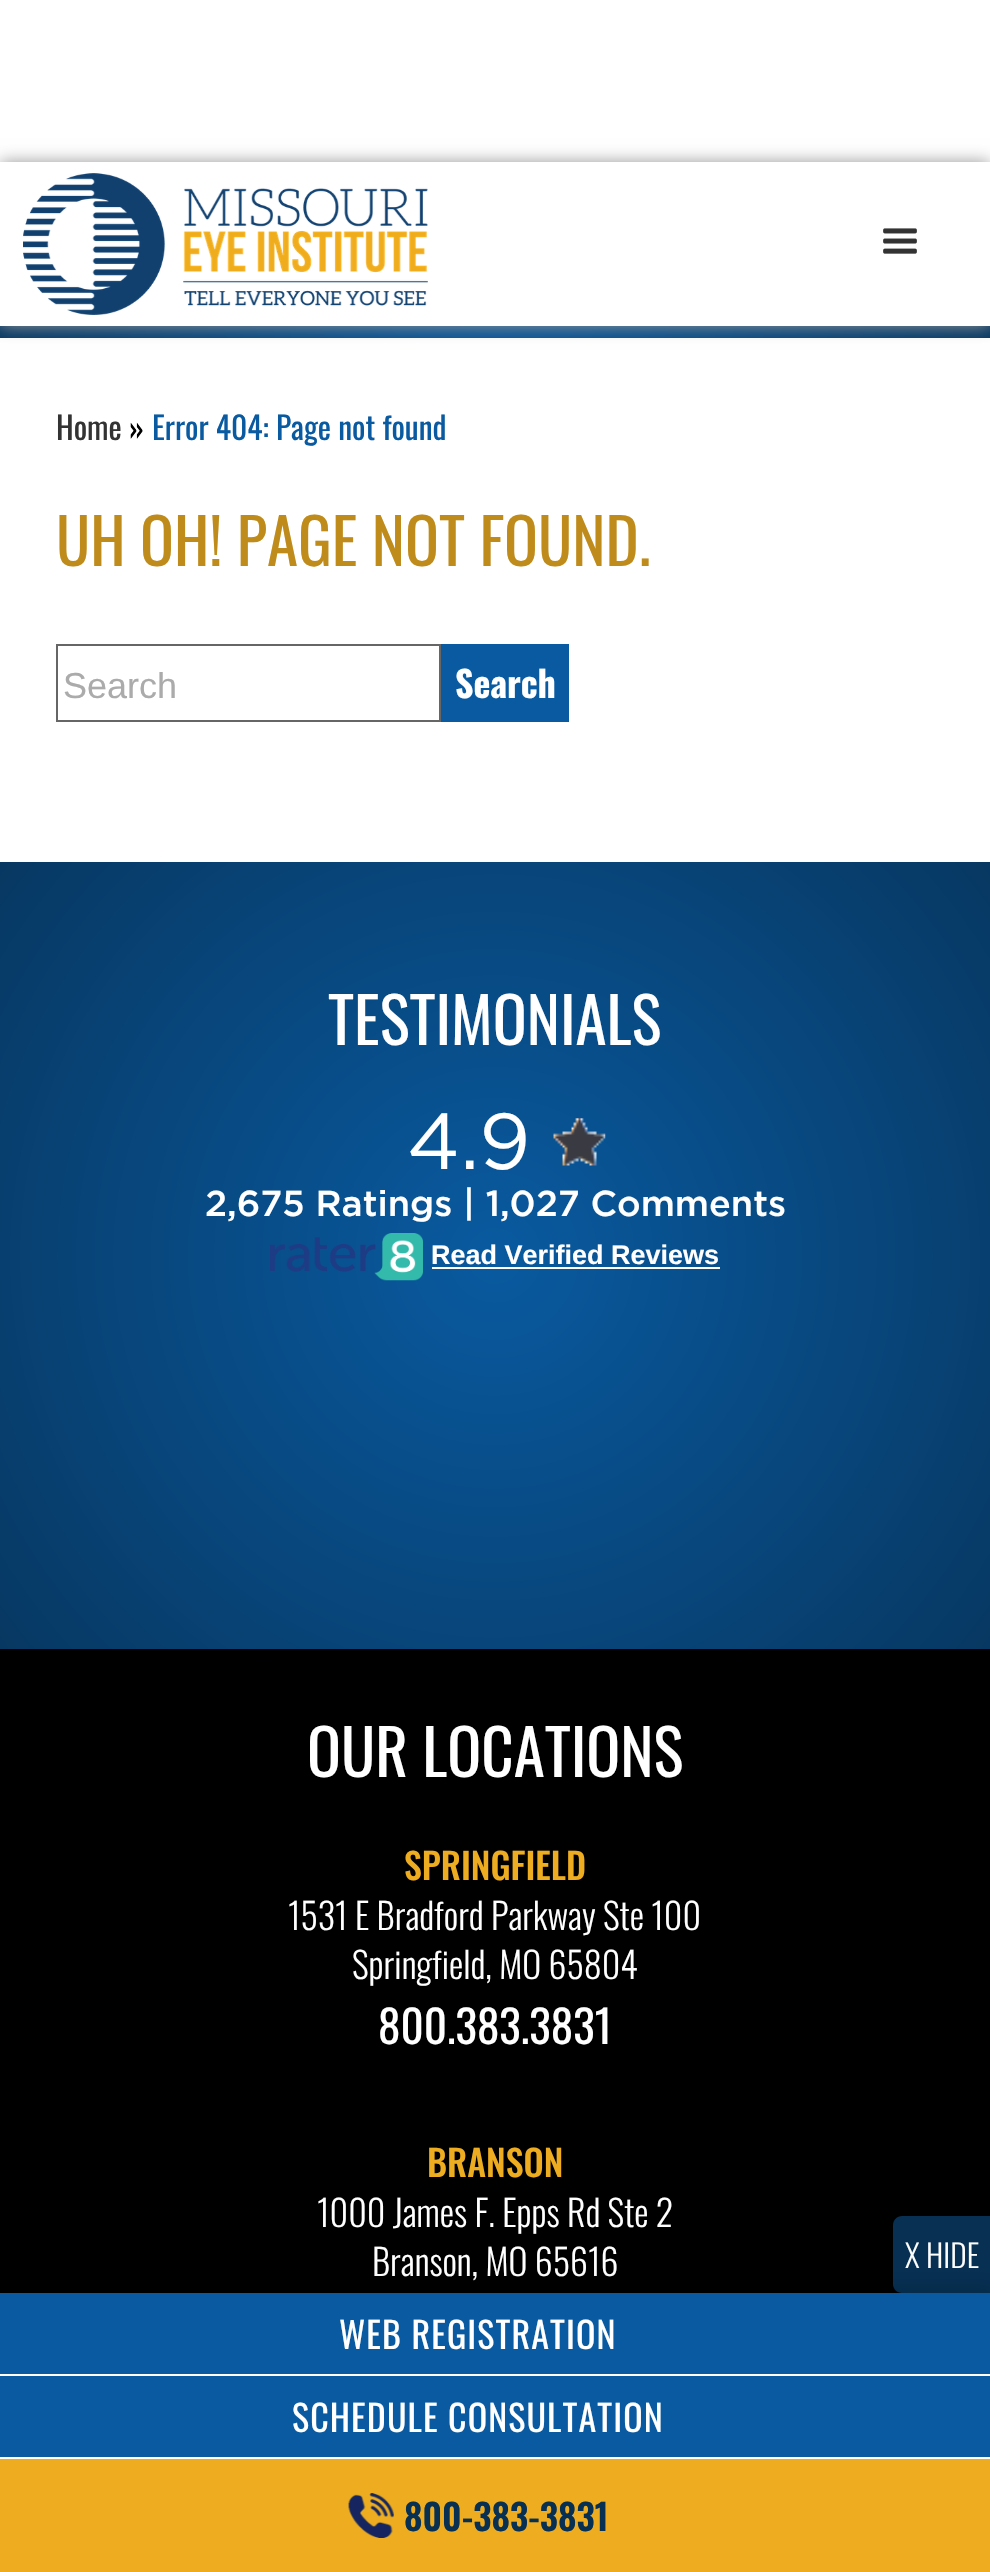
void draw(SkCanvas* canvas) {
	SkPaint paint;
	paint.setAntiAlias(true);
	auto spacedText = [&](const char* s, float x, float y, const SkFont& font, const SkPaint& ink, float letter, float word) {
		std::vector<SkGlyphID> glyphs(font.countText(s, strlen(s), SkTextEncoding::kUTF8));
		std::vector<float> xs(glyphs.size());
		font.textToGlyphs(s, strlen(s), SkTextEncoding::kUTF8, glyphs);
		font.getXPos(glyphs, xs, x);
		float extra = 0;
		for (size_t i = 0; i < glyphs.size(); i++) {
			xs[i] += extra;
			extra += letter + word * (glyphs[i] == font.unicharToGlyph(' '));
		}
		canvas->drawTextBlob(SkTextBlob::MakeFromPosHGlyphs(glyphs, xs, y, font), 0, 0, ink);
	};
	auto svgPath = [&](const char* data, bool evenOdd = false) {
		SkPath result = *SkParsePath::FromSVGString(data);
		if (evenOdd) result.setFillType(SkPathFillType::kEvenOdd);
		return result;
	};
	canvas->clear(0xffffffff);
	{
		const SkColor colors[] = {0xff095aa0, 0xff073964};
		const float stops[] = {0, 1};
		paint.setShader(SkGradientShader::MakeRadial({495, 250}, 503, colors, stops, 2, SkTileMode::kClamp));
		paint.setAlpha(255);
	}
	canvas->drawRect(SkRect::MakeXYWH(0, 326, 990, 12), paint);
	paint.setShader(nullptr);
	paint.setColor(0xff979797);
	paint.setMaskFilter(SkMaskFilter::MakeBlur(kNormal_SkBlurStyle, 8));
	canvas->drawRect(SkRect::MakeXYWH(0, 162, 990, 164), paint);
	paint.setMaskFilter(nullptr);
	paint.setColor(0xffffffff);
	canvas->drawRect(SkRect::MakeXYWH(0, 162, 990, 164), paint);
	canvas->drawImageRect(SkImages::DeferredFromEncodedData(SkData::MakeFromFileName("img1.png")), SkRect::MakeXYWH(23, 173, 405, 142), SkSamplingOptions());
	canvas->drawImageRect(SkImages::DeferredFromEncodedData(SkData::MakeFromFileName("img2.png")), SkRect::MakeXYWH(883, 228, 34, 26), SkSamplingOptions());
	SkFont f1(fontMgr->matchFamilyStyle("Oswald", SkFontStyle::Normal()), 31.5);
	f1.setSubpixel(true);
	paint.setColor(0xff333333);
	canvas->drawString("Home", 56, 440, f1, paint);
	paint.setColor(0xff000000);
	canvas->drawString("»", 129, 440, f1, paint);
	paint.setColor(0xff095aa0);
	canvas->drawString("Error 404: Page not found", 152, 440, f1, paint);
	SkFont f2(fontMgr->matchFamilyStyle("Oswald", SkFontStyle::Normal()), 63);
	f2.setSubpixel(true);
	paint.setColor(0xffbf8b1a);
	canvas->drawString("UH OH! PAGE NOT FOUND.", 56, 566, f2, paint);
	paint.setStroke(true);
	paint.setStrokeWidth(2);
	paint.setColor(0xff666666);
	canvas->drawRect(SkRect::MakeXYWH(57, 645, 383, 76), paint);
	SkFont f3(fontMgr->matchFamilyStyle("Liberation Sans", SkFontStyle::Normal()), 36);
	f3.setSubpixel(true);
	paint.setStroke(false);
	paint.setColor(0xffababab);
	canvas->drawString("Search", 63, 698, f3, paint);
	paint.setColor(0xff095aa0);
	canvas->drawRect(SkRect::MakeXYWH(441, 644, 128, 78), paint);
	SkFont f4(fontMgr->matchFamilyStyle("Oswald", SkFontStyle::Bold()), 36);
	f4.setSubpixel(true);
	paint.setColor(0xffffffff);
	canvas->drawString("Search", 455, 698, f4, paint);
	{
		const SkColor colors[] = {0xff095aa0, 0xff073862};
		const float stops[] = {0, 1};
		paint.setShader(SkGradientShader::MakeRadial({495, 1256}, 633, colors, stops, 2, SkTileMode::kClamp));
		paint.setAlpha(255);
	}
	canvas->drawRect(SkRect::MakeXYWH(0, 862, 990, 787), paint);
	paint.setShader(nullptr);
	paint.setColor(0xffffffff);
	canvas->drawString("TESTIMONIALS", 328, 1045, f2, paint);
	SkFont f5(fontMgr->matchFamilyStyle("GOTHAM", SkFontStyle::Normal()), 79);
	f5.setSubpixel(true);
	canvas->drawString("4.9", 407, 1169, f5, paint);
	canvas->drawImageRect(SkImages::DeferredFromEncodedData(SkData::MakeFromFileName("img3.png")), SkRect::MakeXYWH(553, 1118, 53, 48), SkSamplingOptions());
	SkFont f6(fontMgr->matchFamilyStyle("GOTHAM", SkFontStyle(500, SkFontStyle::kNormal_Width, SkFontStyle::kUpright_Slant)), 36);
	f6.setSubpixel(true);
	canvas->drawString("2,675 Ratings | 1,027 Comments", 205, 1216, f6, paint);
	canvas->drawImageRect(SkImages::DeferredFromEncodedData(SkData::MakeFromFileName("img4.png")), SkRect::MakeXYWH(270, 1233, 153, 48), SkSamplingOptions());
	SkFont f7(fontMgr->matchFamilyStyle("Liberation Sans", SkFontStyle::Bold()), 27);
	f7.setSubpixel(true);
	canvas->drawString("Read Verified Reviews", 431, 1264, f7, paint);
	canvas->drawRect(SkRect::MakeXYWH(432, 1267, 288, 2), paint);
	paint.setColor(0xff000000);
	canvas->drawRect(SkRect::MakeXYWH(0, 1649, 990, 644), paint);
	paint.setColor(0xffffffff);
	canvas->drawString("OUR LOCATIONS", 307, 1777, f2, paint);
	SkFont f8(fontMgr->matchFamilyStyle("Oswald", SkFontStyle(500, SkFontStyle::kNormal_Width, SkFontStyle::kUpright_Slant)), 36);
	f8.setSubpixel(true);
	paint.setColor(0xffeead20);
	canvas->drawString("SPRINGFIELD", 404, 1880, f8, paint);
	SkFont f9(fontMgr->matchFamilyStyle("Oswald", SkFontStyle(300, SkFontStyle::kNormal_Width, SkFontStyle::kUpright_Slant)), 36);
	f9.setSubpixel(true);
	paint.setColor(0xffffffff);
	canvas->drawString("1531 E Bradford Parkway Ste 100", 288, 1930, f9, paint);
	canvas->drawString("Springfield, MO 65804", 352, 1979, f9, paint);
	SkFont f10(fontMgr->matchFamilyStyle("Oswald", SkFontStyle::Normal()), 45);
	f10.setSubpixel(true);
	canvas->drawString("800.383.3831", 378, 2044, f10, paint);
	paint.setColor(0xffeead20);
	canvas->drawString("BRANSON", 427, 2177, f8, paint);
	paint.setColor(0xffffffff);
	canvas->drawString("1000 James F. Epps Rd Ste 2", 317, 2227, f9, paint);
	canvas->drawString("Branson, MO 65616", 372, 2276, f9, paint);
	paint.setColor(0xff073053);
	canvas->drawPath(svgPath("M902 2216H990V2293H902C897 2293 893 2289 893 2284V2225C893 2220 897 2216 902 2216Z"), paint);
	SkFont f11(fontMgr->matchFamilyStyle("Oswald", SkFontStyle(300, SkFontStyle::kNormal_Width, SkFontStyle::kUpright_Slant)), 31.5);
	f11.setSubpixel(true);
	paint.setColor(0xffffffff);
	canvas->drawString("X HIDE", 905, 2268, f11, paint);
	paint.setColor(0x1f000000);
	paint.setMaskFilter(SkMaskFilter::MakeBlur(kNormal_SkBlurStyle, 9));
	canvas->drawRect(SkRect::MakeXYWH(-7, 2286, 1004, 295), paint);
	paint.setMaskFilter(nullptr);
	paint.setColor(0xffffffff);
	canvas->drawRect(SkRect::MakeXYWH(0, 2374, 990, 85), paint);
	paint.setColor(0xff095aa0);
	canvas->drawRect(SkRect::MakeXYWH(0, 2293, 990, 81), paint);
	SkFont f12(fontMgr->matchFamilyStyle("Oswald", SkFontStyle::Normal()), 36);
	f12.setSubpixel(true);
	paint.setColor(0xffffffff);
	spacedText("WEB REGISTRATION", 339, 2349, f12, paint, 1.1, 0);
	paint.setColor(0xff095aa0);
	canvas->drawRect(SkRect::MakeXYWH(0, 2376, 990, 81), paint);
	paint.setColor(0xffffffff);
	spacedText("SCHEDULE CONSULTATION", 292, 2432, f12, paint, 1.1, 0);
	paint.setColor(0xffeead20);
	canvas->drawRect(SkRect::MakeXYWH(0, 2459, 990, 113), paint);
	canvas->drawImageRect(SkImages::DeferredFromEncodedData(SkData::MakeFromFileName("img5.png")), SkRect::MakeXYWH(348, 2493, 46, 45), SkSamplingOptions());
	SkFont f13(fontMgr->matchFamilyStyle("Oswald", SkFontStyle(600, SkFontStyle::kNormal_Width, SkFontStyle::kUpright_Slant)), 36);
	f13.setSubpixel(true);
	paint.setColor(0xff073053);
	canvas->drawString("800-383-3831", 404, 2531, f13, paint);
}
